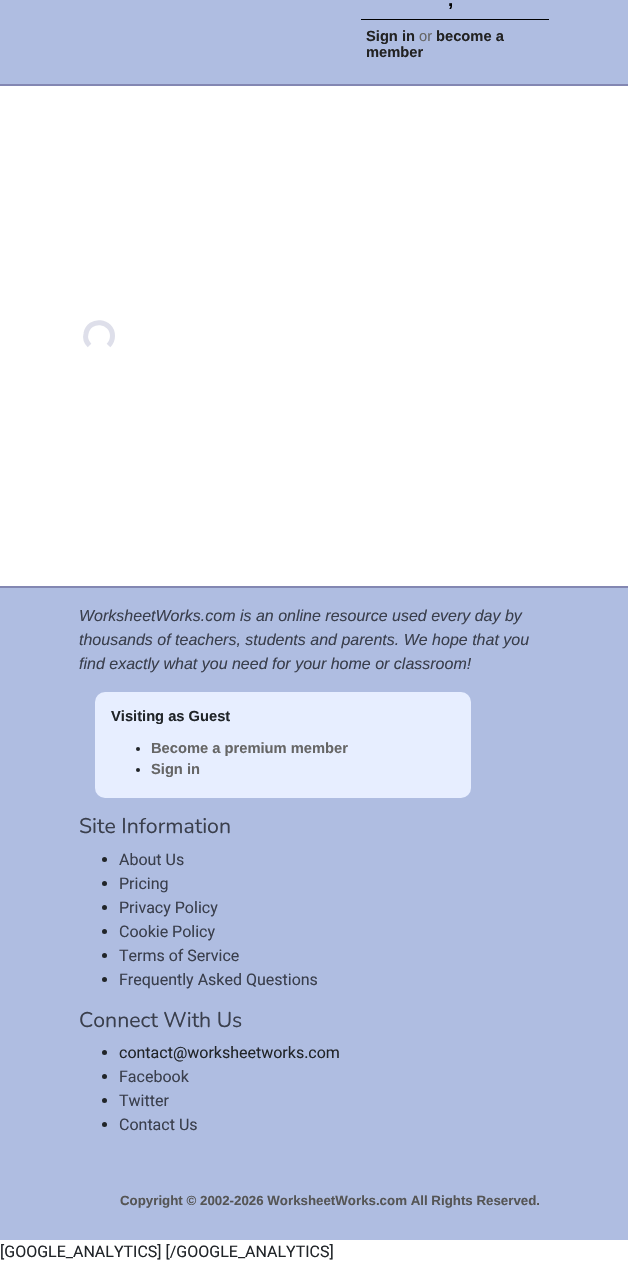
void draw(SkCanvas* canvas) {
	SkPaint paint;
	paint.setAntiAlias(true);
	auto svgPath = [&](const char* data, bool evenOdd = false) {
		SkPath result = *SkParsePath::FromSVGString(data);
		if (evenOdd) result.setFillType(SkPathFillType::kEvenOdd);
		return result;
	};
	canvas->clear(0xffffffff);
	paint.setColor(0xffafbde1);
	canvas->drawRect(SkRect::MakeXYWH(0, 0, 628, 84), paint);
	paint.setColor(0xff8387b2);
	canvas->drawRect(SkRect::MakeXYWH(0, 84, 628, 2), paint);
	paint.setColor(0xff000000);
	canvas->drawRect(SkRect::MakeXYWH(361, 19, 188, 1), paint);
	SkFont f1(fontMgr->matchFamilyStyle("Liberation Sans", SkFontStyle::Bold()), 19);
	f1.setSubpixel(true);
	canvas->drawString(",", 448, 6, f1, paint);
	SkFont f2(fontMgr->matchFamilyStyle("Liberation Sans", SkFontStyle::Bold()), 14.7);
	f2.setSubpixel(true);
	paint.setColor(0xff222222);
	canvas->drawString("Sign in", 366, 41, f2, paint);
	SkFont f3(fontMgr->matchFamilyStyle("Liberation Sans", SkFontStyle::Normal()), 14.7);
	f3.setSubpixel(true);
	paint.setColor(0xff666666);
	canvas->drawString("or", 419, 41, f3, paint);
	paint.setColor(0xff222222);
	canvas->drawString("become a", 436, 41, f2, paint);
	canvas->drawString("member", 366, 57, f2, paint);
	paint.setStroke(true);
	paint.setStrokeWidth(5);
	paint.setColor(0xffdedfea);
	canvas->drawPath(svgPath("M89.5 345.5C86.5 342.5 85 337.5 86 333.5C89 317.5 112.5 320 112.5 336C112.5 339.5 111 343 108.5 345.5"), paint);
	paint.setStroke(false);
	paint.setColor(0xffafbde1);
	canvas->drawRect(SkRect::MakeXYWH(0, 588, 628, 652), paint);
	paint.setColor(0xff8387b2);
	canvas->drawRect(SkRect::MakeXYWH(0, 586, 628, 2), paint);
	SkFont f4(fontMgr->matchFamilyStyle("Liberation Sans", SkFontStyle::Italic()), 16);
	f4.setSubpixel(true);
	paint.setColor(0xff3a3f4d);
	canvas->drawString("WorksheetWorks.com is an online resource used every day by", 79, 621, f4, paint);
	canvas->drawString("thousands of teachers, students and parents. We hope that you", 79, 645, f4, paint);
	canvas->drawString("find exactly what you need for your home or classroom!", 79, 669, f4, paint);
	paint.setColor(0xffe7eeff);
	canvas->drawRoundRect(SkRect::MakeXYWH(95, 692, 376, 106), 10, 10, paint);
	paint.setColor(0xff212529);
	canvas->drawString("Visiting as Guest", 111, 721, f2, paint);
	canvas->drawCircle(138, 749, 2, paint);
	paint.setColor(0xff666666);
	canvas->drawString("Become a premium member", 151, 753, f2, paint);
	paint.setColor(0xff212529);
	canvas->drawCircle(138, 770, 2, paint);
	paint.setColor(0xff666666);
	canvas->drawString("Sign in", 151, 774, f2, paint);
	SkFont f5(fontMgr->matchFamilyStyle("Nunito", SkFontStyle::Normal()), 21.25);
	f5.setSubpixel(true);
	paint.setColor(0xff3a3f4d);
	canvas->drawString("Site Information", 79, 833, f5, paint);
	paint.setColor(0xff212529);
	canvas->drawCircle(104.5, 859.5, 2.5, paint);
	SkFont f6(fontMgr->matchFamilyStyle("Roboto", SkFontStyle::Normal()), 16);
	f6.setSubpixel(true);
	paint.setColor(0xff3a3f4d);
	canvas->drawString("About Us", 119, 865, f6, paint);
	paint.setColor(0xff212529);
	canvas->drawCircle(104.5, 883.5, 2.5, paint);
	paint.setColor(0xff3a3f4d);
	canvas->drawString("Pricing", 119, 889, f6, paint);
	paint.setColor(0xff212529);
	canvas->drawCircle(104.5, 907.5, 2.5, paint);
	paint.setColor(0xff3a3f4d);
	canvas->drawString("Privacy Policy", 119, 913, f6, paint);
	paint.setColor(0xff212529);
	canvas->drawCircle(104.5, 931.5, 2.5, paint);
	paint.setColor(0xff3a3f4d);
	canvas->drawString("Cookie Policy", 119, 937, f6, paint);
	paint.setColor(0xff212529);
	canvas->drawCircle(104.5, 955.5, 2.5, paint);
	paint.setColor(0xff3a3f4d);
	canvas->drawString("Terms of Service", 119, 961, f6, paint);
	paint.setColor(0xff212529);
	canvas->drawCircle(104.5, 979.5, 2.5, paint);
	paint.setColor(0xff3a3f4d);
	canvas->drawString("Frequently Asked Questions", 119, 985, f6, paint);
	canvas->drawString("Connect With Us", 79, 1027, f5, paint);
	paint.setColor(0xff212529);
	canvas->drawCircle(104.5, 1052.5, 2.5, paint);
	canvas->drawString("contact@worksheetworks.com", 119, 1058, f6, paint);
	canvas->drawCircle(104.5, 1076.5, 2.5, paint);
	paint.setColor(0xff3a3f4d);
	canvas->drawString("Facebook", 119, 1082, f6, paint);
	paint.setColor(0xff212529);
	canvas->drawCircle(104.5, 1100.5, 2.5, paint);
	paint.setColor(0xff3a3f4d);
	canvas->drawString("Twitter", 119, 1106, f6, paint);
	paint.setColor(0xff212529);
	canvas->drawCircle(104.5, 1124.5, 2.5, paint);
	paint.setColor(0xff3a3f4d);
	canvas->drawString("Contact Us", 119, 1130, f6, paint);
	SkFont f7(fontMgr->matchFamilyStyle("Liberation Sans", SkFontStyle::Bold()), 13.3);
	f7.setSubpixel(true);
	paint.setColor(0xff555555);
	canvas->drawString("Copyright © 2002-2026 WorksheetWorks.com All Rights Reserved.", 120, 1205, f7, paint);
	paint.setColor(0xff212529);
	canvas->drawString("[GOOGLE_ANALYTICS] [/GOOGLE_ANALYTICS]", 0, 1257, f6, paint);
}
